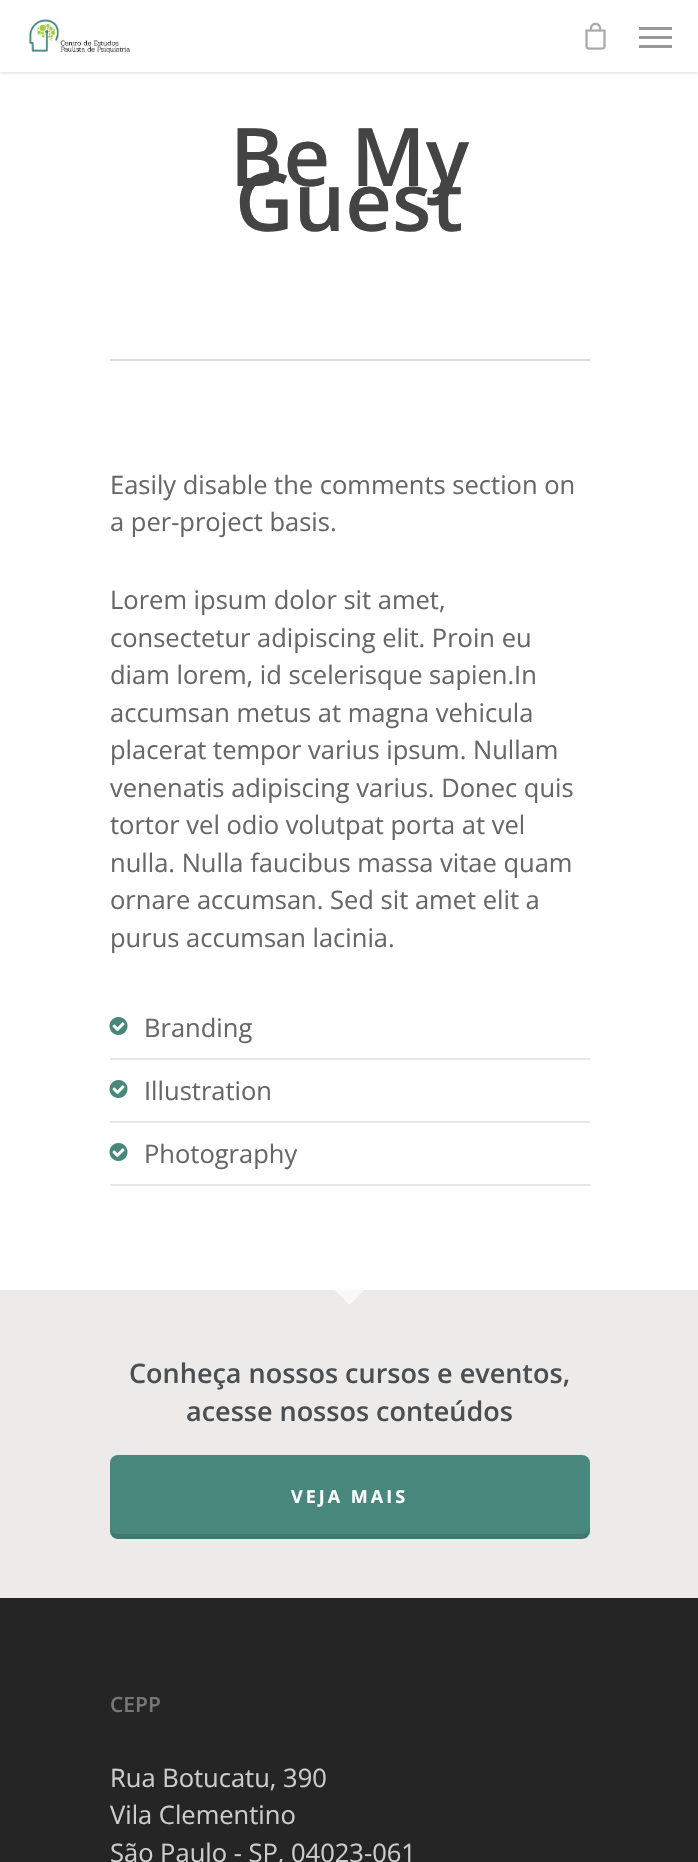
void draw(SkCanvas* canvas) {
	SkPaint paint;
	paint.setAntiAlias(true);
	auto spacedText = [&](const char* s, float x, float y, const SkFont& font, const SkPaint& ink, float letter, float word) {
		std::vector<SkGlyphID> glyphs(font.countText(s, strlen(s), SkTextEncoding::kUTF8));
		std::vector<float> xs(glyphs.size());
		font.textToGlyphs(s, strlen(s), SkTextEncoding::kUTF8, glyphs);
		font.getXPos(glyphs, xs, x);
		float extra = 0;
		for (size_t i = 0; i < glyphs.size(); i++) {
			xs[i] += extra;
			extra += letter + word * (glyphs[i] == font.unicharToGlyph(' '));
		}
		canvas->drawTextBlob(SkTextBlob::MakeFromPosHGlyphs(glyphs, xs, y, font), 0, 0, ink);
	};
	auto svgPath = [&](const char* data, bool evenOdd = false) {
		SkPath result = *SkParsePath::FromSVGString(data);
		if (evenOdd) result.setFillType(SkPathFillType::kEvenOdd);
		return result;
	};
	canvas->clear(0xffffffff);
	canvas->save();
	canvas->clipRect(SkRect::MakeXYWH(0, 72, 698, 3));
	paint.setColor(0x38000000);
	paint.setMaskFilter(SkMaskFilter::MakeBlur(kNormal_SkBlurStyle, 2));
	canvas->drawRect(SkRect::MakeXYWH(0, 0, 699, 72), paint);
	paint.setMaskFilter(nullptr);
	canvas->restore();
	canvas->drawImageRect(SkImages::DeferredFromEncodedData(SkData::MakeFromFileName("img1.png")), SkRect::MakeXYWH(29, 19, 101, 35), SkSamplingOptions());
	canvas->drawImageRect(SkImages::DeferredFromEncodedData(SkData::MakeFromFileName("img2.png")), SkRect::MakeXYWH(585, 22, 21, 28), SkSamplingOptions());
	paint.setColor(0xff999999);
	canvas->drawRect(SkRect::MakeXYWH(639, 27, 33, 3), paint);
	canvas->drawRect(SkRect::MakeXYWH(639, 45, 33, 3), paint);
	canvas->drawRect(SkRect::MakeXYWH(639, 36, 33, 3), paint);
	paint.setColor(0xffdddddd);
	canvas->drawRect(SkRect::MakeXYWH(110, 359, 480, 2), paint);
	SkFont f1(fontMgr->matchFamilyStyle("Open Sans", SkFontStyle(600, SkFontStyle::kNormal_Width, SkFontStyle::kUpright_Slant)), 81);
	f1.setSubpixel(true);
	paint.setColor(0xff444444);
	canvas->drawString("Be My", 230, 186, f1, paint);
	canvas->drawString("Guest", 235, 231, f1, paint);
	SkFont f2(fontMgr->matchFamilyStyle("Open Sans", SkFontStyle::Normal()), 25.5);
	f2.setSubpixel(true);
	paint.setColor(0xff676767);
	canvas->drawString("Easily disable the comments section on", 110, 494, f2, paint);
	canvas->drawString("a per-project basis.", 110, 531, f2, paint);
	canvas->drawString("Lorem ipsum dolor sit amet,", 110, 609, f2, paint);
	canvas->drawString("consectetur adipiscing elit. Proin eu", 110, 647, f2, paint);
	canvas->drawString("diam lorem, id scelerisque sapien.In", 110, 684, f2, paint);
	canvas->drawString("accumsan metus at magna vehicula", 110, 722, f2, paint);
	canvas->drawString("placerat tempor varius ipsum. Nullam", 110, 759, f2, paint);
	canvas->drawString("venenatis adipiscing varius. Donec quis", 110, 797, f2, paint);
	canvas->drawString("tortor vel odio volutpat porta at vel", 110, 834, f2, paint);
	canvas->drawString("nulla. Nulla faucibus massa vitae quam", 110, 872, f2, paint);
	canvas->drawString("ornare accumsan. Sed sit amet elit a", 110, 909, f2, paint);
	canvas->drawString("purus accumsan lacinia.", 110, 947, f2, paint);
	paint.setColor(0xffe6e6e6);
	canvas->drawRect(SkRect::MakeXYWH(110, 1058, 480, 2), paint);
	canvas->drawImageRect(SkImages::DeferredFromEncodedData(SkData::MakeFromFileName("img3.png")), SkRect::MakeXYWH(109, 1017, 19, 18), SkSamplingOptions());
	paint.setColor(0xff676767);
	canvas->drawString("Branding", 144, 1037, f2, paint);
	paint.setColor(0xffe6e6e6);
	canvas->drawRect(SkRect::MakeXYWH(110, 1121, 480, 2), paint);
	canvas->drawImageRect(SkImages::DeferredFromEncodedData(SkData::MakeFromFileName("img3.png")), SkRect::MakeXYWH(109, 1080, 19, 18), SkSamplingOptions());
	paint.setColor(0xff676767);
	canvas->drawString("Illustration", 144, 1100, f2, paint);
	paint.setColor(0xffe6e6e6);
	canvas->drawRect(SkRect::MakeXYWH(110, 1184, 480, 2), paint);
	canvas->drawImageRect(SkImages::DeferredFromEncodedData(SkData::MakeFromFileName("img3.png")), SkRect::MakeXYWH(109, 1143, 19, 18), SkSamplingOptions());
	paint.setColor(0xff676767);
	canvas->drawString("Photography", 144, 1163, f2, paint);
	paint.setColor(0xff252525);
	canvas->drawRect(SkRect::MakeXYWH(0, 1598, 698, 264), paint);
	paint.setColor(0xffecebe9);
	canvas->drawRect(SkRect::MakeXYWH(0, 1290, 698, 308), paint);
	paint.setColor(0xfff8f8f8);
	canvas->drawPath(svgPath("M334.5 1290H364.5L349.5 1305Z"), paint);
	SkFont f3(fontMgr->matchFamilyStyle("Open Sans", SkFontStyle(600, SkFontStyle::kNormal_Width, SkFontStyle::kUpright_Slant)), 27);
	f3.setSubpixel(true);
	paint.setColor(0xff4b4f52);
	canvas->drawString("Conheça nossos cursos e eventos,", 129, 1383, f3, paint);
	canvas->drawString("acesse nossos conteúdos", 186, 1421, f3, paint);
	paint.setColor(0xff48877c);
	canvas->drawRoundRect(SkRect::MakeXYWH(110, 1455, 480, 84), 8, 8, paint);
	paint.setColor(0x1a000000);
	canvas->drawPath(svgPath("M110 1527V1531C110 1535 114 1539 118 1539H582C586 1539 590 1535 590 1531V1527C590 1531 586 1534 582 1534H117C113 1534 110 1531 110 1527Z"), paint);
	SkFont f4(fontMgr->matchFamilyStyle("Open Sans", SkFontStyle::Bold()), 18);
	f4.setSubpixel(true);
	paint.setColor(0xffffffff);
	spacedText("VEJA MAIS", 291, 1503, f4, paint, 3, 0);
	SkFont f5(fontMgr->matchFamilyStyle("Open Sans", SkFontStyle(600, SkFontStyle::kNormal_Width, SkFontStyle::kUpright_Slant)), 21);
	f5.setSubpixel(true);
	paint.setColor(0xff777777);
	canvas->drawString("CEPP", 110, 1712, f5, paint);
	paint.setColor(0xffcccccc);
	canvas->drawString("Rua Botucatu, 390", 110, 1787, f2, paint);
	canvas->drawString("Vila Clementino", 110, 1824, f2, paint);
	canvas->drawString("São Paulo - SP, 04023-061", 110, 1862, f2, paint);
}
